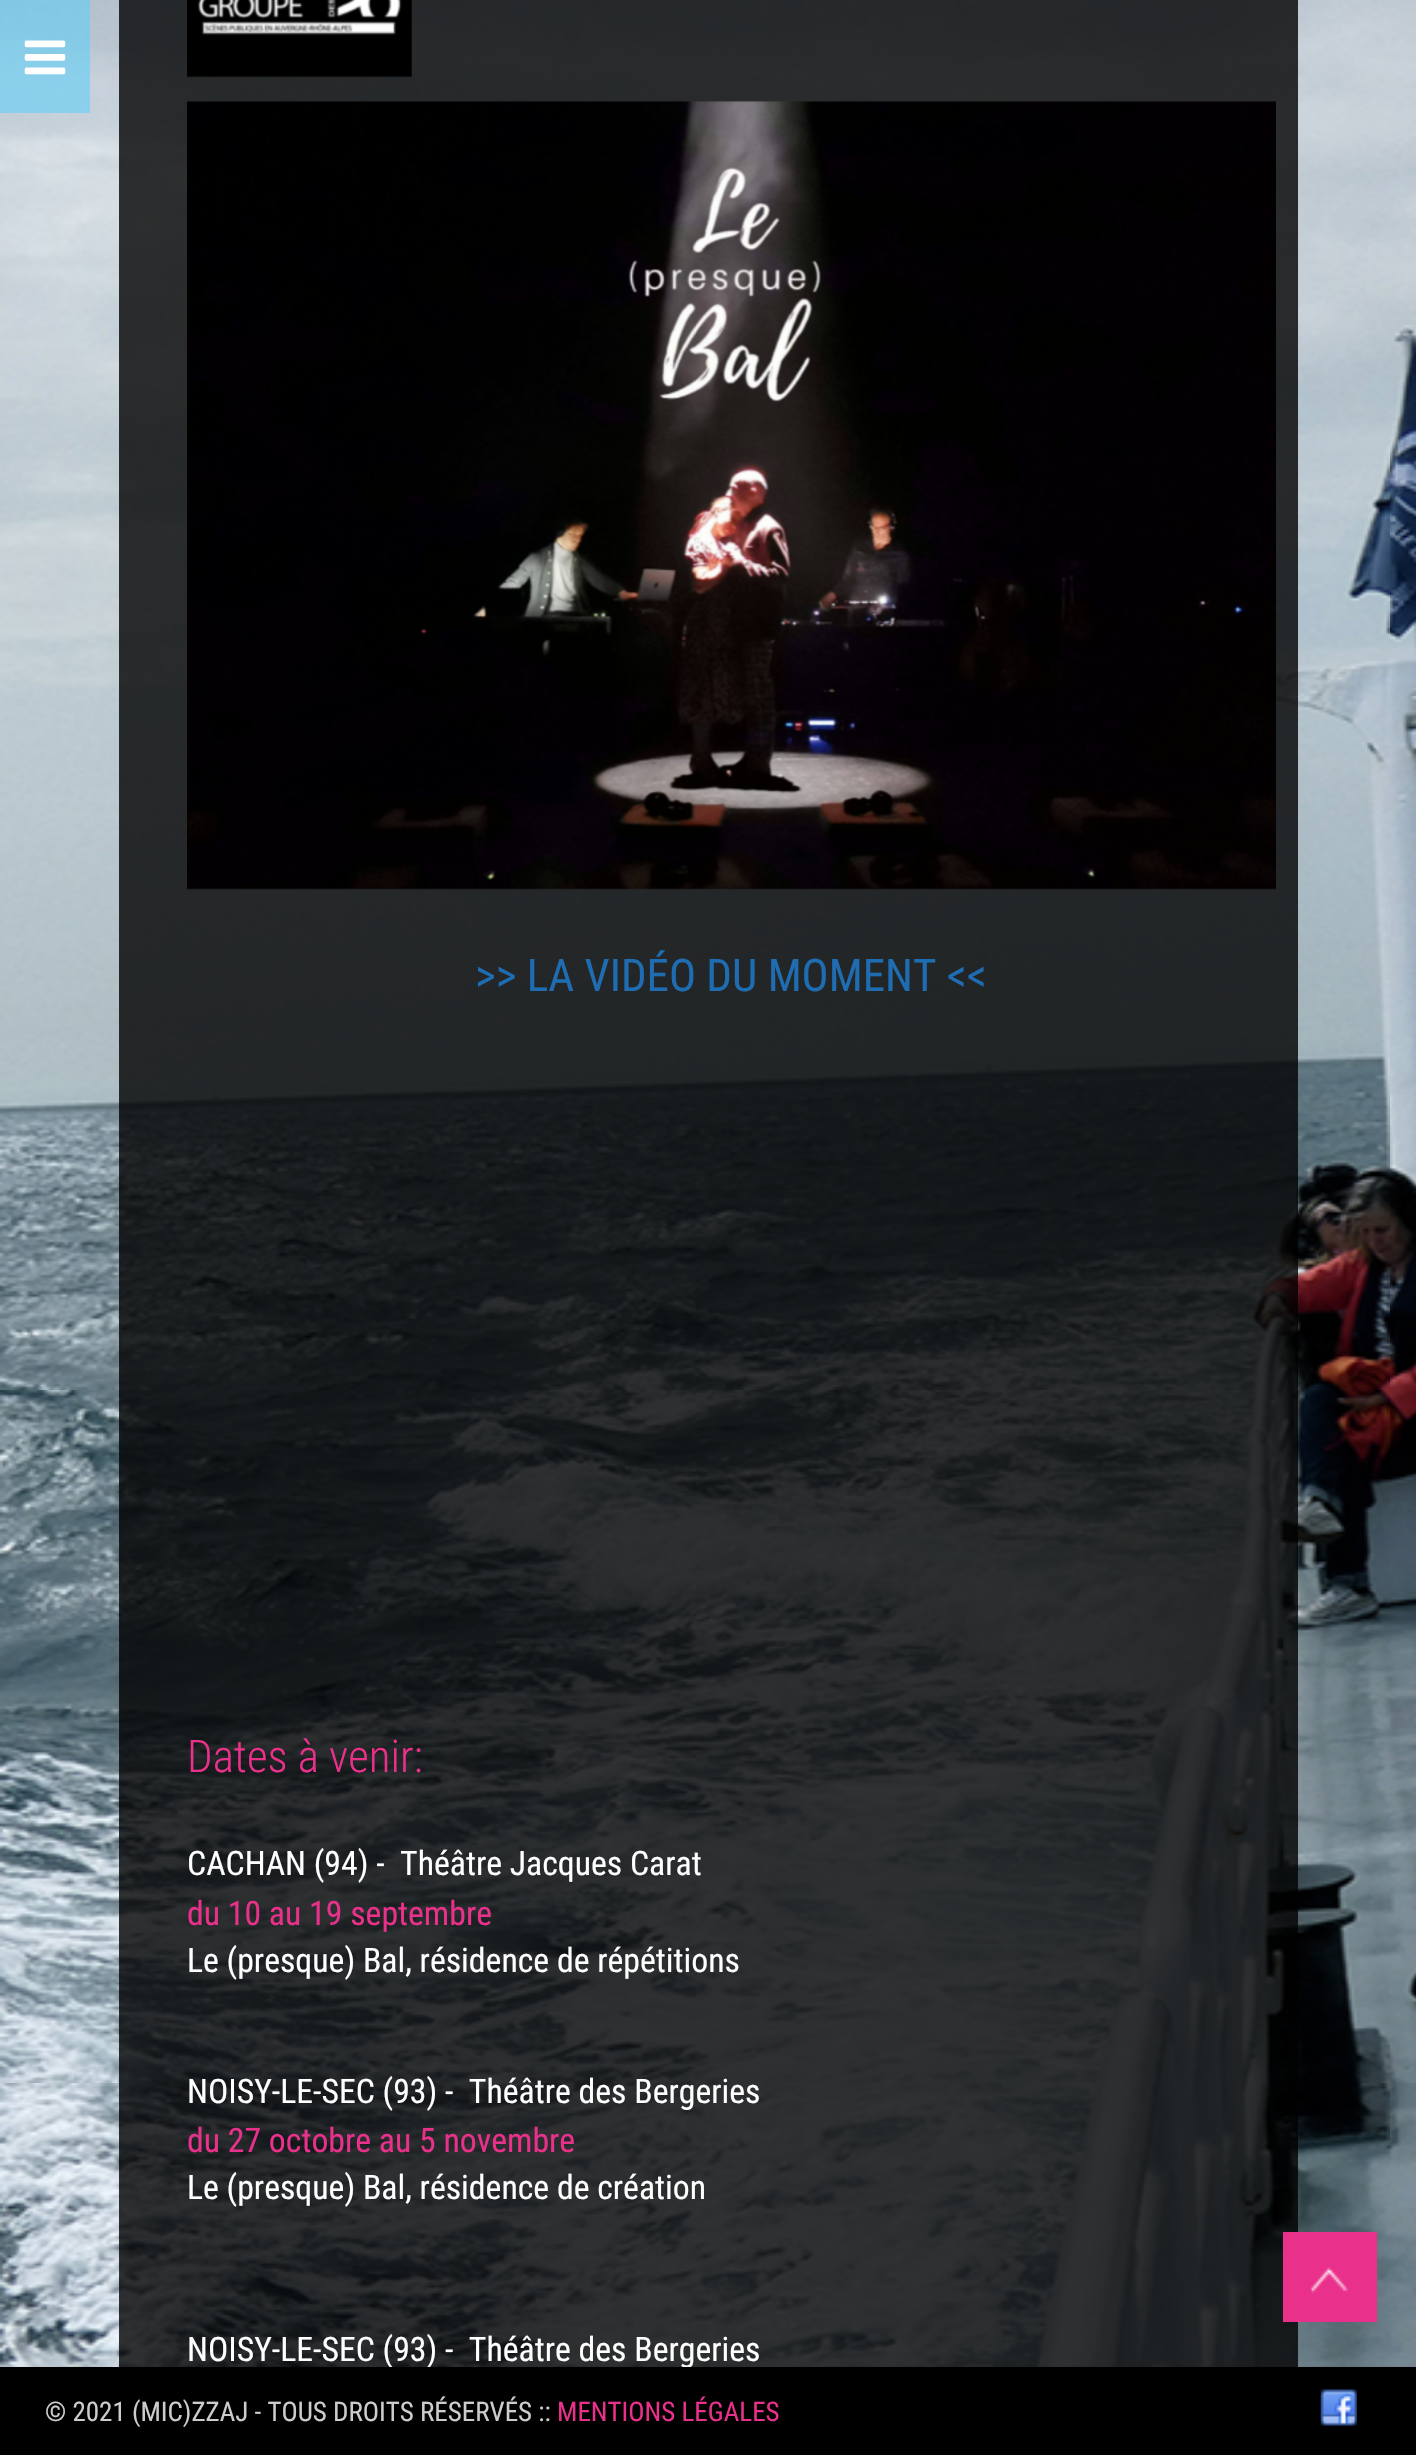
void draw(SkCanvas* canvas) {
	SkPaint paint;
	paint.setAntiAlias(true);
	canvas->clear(0xffffffff);
	canvas->drawImageRect(SkImages::DeferredFromEncodedData(SkData::MakeFromFileName("img1.png")), SkRect::MakeXYWH(0, 0, 1416, 2367), SkSamplingOptions());
	paint.setColor(0x8c5acffa);
	canvas->drawRect(SkRect::MakeXYWH(0, 0, 90, 113), paint);
	canvas->drawImageRect(SkImages::DeferredFromEncodedData(SkData::MakeFromFileName("img2.png")), SkRect::MakeXYWH(24, 40, 42, 35), SkSamplingOptions());
	paint.setColor(0xcc000000);
	canvas->drawRect(SkRect::MakeXYWH(119, 0, 1179, 2367), paint);
	canvas->drawImageRect(SkImages::DeferredFromEncodedData(SkData::MakeFromFileName("img3.png")), SkRect::MakeXYWH(187, 0, 225, 78), SkSamplingOptions());
	canvas->drawImageRect(SkImages::DeferredFromEncodedData(SkData::MakeFromFileName("img4.png")), SkRect::MakeXYWH(187, 101, 1089, 789), SkSamplingOptions());
	SkFont f1(fontMgr->matchFamilyStyle("Roboto Condensed", SkFontStyle::Normal()), 45);
	f1.setSubpixel(true);
	paint.setColor(0xff1e6cb1);
	canvas->drawString(">> LA VIDÉO DU MOMENT <<", 475, 991, f1, paint);
	SkFont f2(fontMgr->matchFamilyStyle("Roboto Condensed", SkFontStyle(300, SkFontStyle::kNormal_Width, SkFontStyle::kUpright_Slant)), 45);
	f2.setSubpixel(true);
	paint.setColor(0xffe9308a);
	canvas->drawString("Dates à venir:", 187, 1772, f2, paint);
	SkFont f3(fontMgr->matchFamilyStyle("Roboto Condensed", SkFontStyle::Normal()), 33.75);
	f3.setSubpixel(true);
	paint.setColor(0xffffffff);
	canvas->drawString("CACHAN (94) -  Théâtre Jacques Carat", 187, 1875, f3, paint);
	paint.setColor(0xffe9308a);
	canvas->drawString("du 10 au 19 septembre", 187, 1925, f3, paint);
	paint.setColor(0xffffffff);
	canvas->drawString("Le (presque) Bal, résidence de répétitions", 187, 1972, f3, paint);
	canvas->drawString("NOISY-LE-SEC (93) -  Théâtre des Bergeries", 187, 2103, f3, paint);
	paint.setColor(0xffe9308a);
	canvas->drawString("du 27 octobre au 5 novembre", 187, 2152, f3, paint);
	paint.setColor(0xffffffff);
	canvas->drawString("Le (presque) Bal, résidence de création", 187, 2199, f3, paint);
	canvas->drawString("NOISY-LE-SEC (93) -  Théâtre des Bergeries", 187, 2361, f3, paint);
	paint.setColor(0xffe9308a);
	canvas->drawRect(SkRect::MakeXYWH(1283, 2232, 94, 90), paint);
	canvas->drawImageRect(SkImages::DeferredFromEncodedData(SkData::MakeFromFileName("img5.png")), SkRect::MakeXYWH(1310, 2267, 39, 27), SkSamplingOptions());
	paint.setColor(0x40000000);
	paint.setMaskFilter(SkMaskFilter::MakeBlur(kNormal_SkBlurStyle, 2));
	canvas->drawRect(SkRect::MakeXYWH(0, 2369, 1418, 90), paint);
	paint.setMaskFilter(nullptr);
	paint.setColor(0xff000000);
	canvas->drawRect(SkRect::MakeXYWH(0, 2367, 1416, 88), paint);
	SkFont f4(fontMgr->matchFamilyStyle("Roboto Condensed", SkFontStyle::Normal()), 27);
	f4.setSubpixel(true);
	paint.setColor(0xffcccccc);
	canvas->drawString("© 2021 (MIC)ZZAJ - TOUS DROITS RÉSERVÉS ::", 45, 2421, f4, paint);
	paint.setColor(0xffe9308a);
	canvas->drawString("MENTIONS LÉGALES", 557, 2421, f4, paint);
	canvas->drawImageRect(SkImages::DeferredFromEncodedData(SkData::MakeFromFileName("img6.png")), SkRect::MakeXYWH(1320, 2389, 37, 37), SkSamplingOptions());
}
